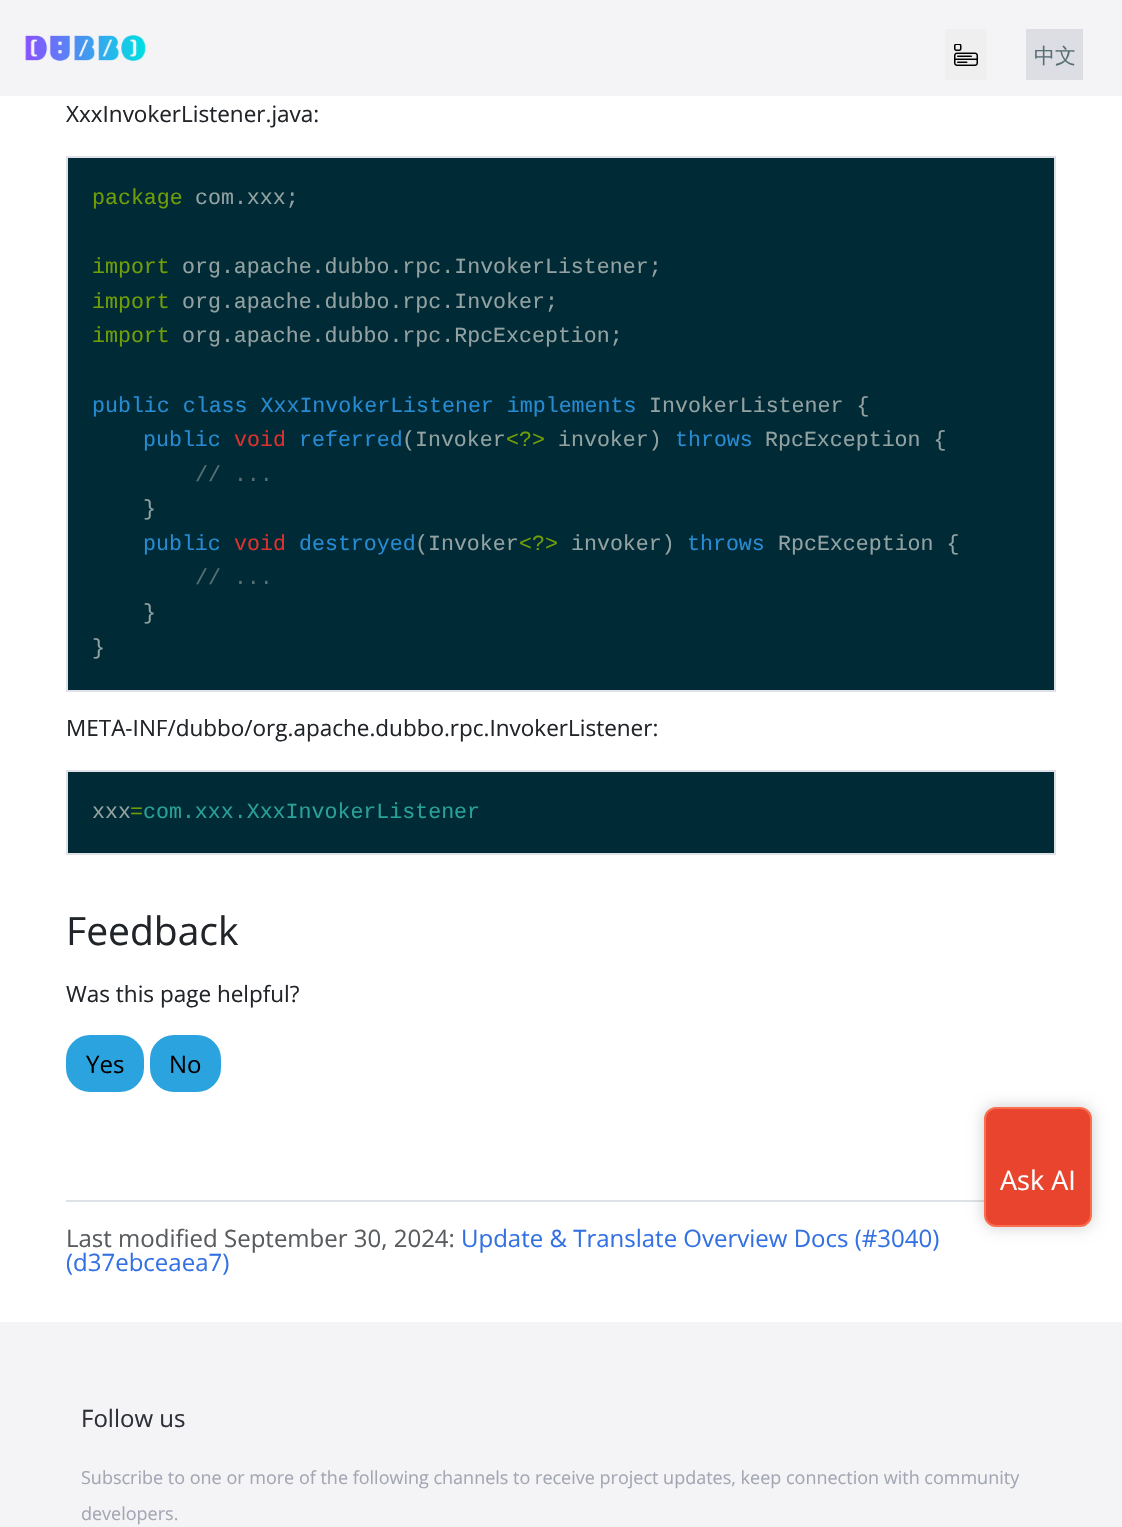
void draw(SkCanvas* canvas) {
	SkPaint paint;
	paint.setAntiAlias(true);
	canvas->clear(0xffffffff);
	paint.setColor(0xfff4f4f6);
	canvas->drawRect(SkRect::MakeXYWH(0, 0, 1122, 96), paint);
	canvas->drawImageRect(SkImages::DeferredFromEncodedData(SkData::MakeFromFileName("img1.png")), SkRect::MakeXYWH(25, 35, 121, 26), SkSamplingOptions());
	paint.setColor(0xffefefef);
	canvas->drawRect(SkRect::MakeXYWH(945, 29, 42, 51), paint);
	canvas->drawImageRect(SkImages::DeferredFromEncodedData(SkData::MakeFromFileName("img2.png")), SkRect::MakeXYWH(954, 44, 24, 22), SkSamplingOptions());
	paint.setColor(0xffdddee4);
	canvas->drawRect(SkRect::MakeXYWH(1026, 29, 57, 51), paint);
	SkFont f1(fontMgr->matchFamilyStyle("WenQuanYi Zen Hei", SkFontStyle(500, SkFontStyle::kNormal_Width, SkFontStyle::kUpright_Slant)), 21);
	f1.setSubpixel(true);
	paint.setColor(0xff586e75);
	canvas->drawString("中文", 1034, 63, f1, paint);
	SkFont f2(fontMgr->matchFamilyStyle("Open Sans", SkFontStyle::Normal()), 22.5);
	f2.setSubpixel(true);
	paint.setColor(0xff212529);
	canvas->drawString("XxxInvokerListener.java:", 66, 122, f2, paint);
	paint.setColor(0xff002b36);
	canvas->drawRect(SkRect::MakeXYWH(67, 157, 988, 534), paint);
	paint.setStroke(true);
	paint.setStrokeWidth(2);
	paint.setColor(0xffdee2e6);
	canvas->drawRect(SkRect::MakeXYWH(67, 157, 988, 534), paint);
	SkFont f3(fontMgr->matchFamilyStyle("Liberation Mono", SkFontStyle::Normal()), 21.6);
	f3.setSubpixel(true);
	paint.setStroke(false);
	paint.setColor(0xff719e07);
	canvas->drawString("package", 92, 204, f3, paint);
	paint.setColor(0xff93a1a1);
	canvas->drawString("com.xxx;", 195, 204, f3, paint);
	paint.setColor(0xff719e07);
	canvas->drawString("import", 92, 273, f3, paint);
	paint.setColor(0xff93a1a1);
	canvas->drawString("org.apache.dubbo.rpc.InvokerListener;", 182, 273, f3, paint);
	paint.setColor(0xff719e07);
	canvas->drawString("import", 92, 308, f3, paint);
	paint.setColor(0xff93a1a1);
	canvas->drawString("org.apache.dubbo.rpc.Invoker;", 182, 308, f3, paint);
	paint.setColor(0xff719e07);
	canvas->drawString("import", 92, 342, f3, paint);
	paint.setColor(0xff93a1a1);
	canvas->drawString("org.apache.dubbo.rpc.RpcException;", 182, 342, f3, paint);
	paint.setColor(0xff268bd2);
	canvas->drawString("public class XxxInvokerListener implements", 92, 412, f3, paint);
	paint.setColor(0xff93a1a1);
	canvas->drawString("InvokerListener {", 649, 412, f3, paint);
	paint.setColor(0xff268bd2);
	canvas->drawString("public", 143, 446, f3, paint);
	paint.setColor(0xffdc322f);
	canvas->drawString("void", 234, 446, f3, paint);
	paint.setColor(0xff268bd2);
	canvas->drawString("referred", 299, 446, f3, paint);
	paint.setColor(0xff93a1a1);
	canvas->drawString("(Invoker", 402, 446, f3, paint);
	paint.setColor(0xff719e07);
	canvas->drawString("<?>", 506, 446, f3, paint);
	paint.setColor(0xff93a1a1);
	canvas->drawString("invoker)", 558, 446, f3, paint);
	paint.setColor(0xff268bd2);
	canvas->drawString("throws", 675, 446, f3, paint);
	paint.setColor(0xff93a1a1);
	canvas->drawString("RpcException {", 765, 446, f3, paint);
	paint.setColor(0xff586e75);
	canvas->drawString("// ...", 195, 481, f3, paint);
	paint.setColor(0xff93a1a1);
	canvas->drawString("}", 143, 515, f3, paint);
	paint.setColor(0xff268bd2);
	canvas->drawString("public", 143, 550, f3, paint);
	paint.setColor(0xffdc322f);
	canvas->drawString("void", 234, 550, f3, paint);
	paint.setColor(0xff268bd2);
	canvas->drawString("destroyed", 299, 550, f3, paint);
	paint.setColor(0xff93a1a1);
	canvas->drawString("(Invoker", 415, 550, f3, paint);
	paint.setColor(0xff719e07);
	canvas->drawString("<?>", 519, 550, f3, paint);
	paint.setColor(0xff93a1a1);
	canvas->drawString("invoker)", 571, 550, f3, paint);
	paint.setColor(0xff268bd2);
	canvas->drawString("throws", 687, 550, f3, paint);
	paint.setColor(0xff93a1a1);
	canvas->drawString("RpcException {", 778, 550, f3, paint);
	paint.setColor(0xff586e75);
	canvas->drawString("// ...", 195, 584, f3, paint);
	paint.setColor(0xff93a1a1);
	canvas->drawString("}", 143, 619, f3, paint);
	canvas->drawString("}", 92, 654, f3, paint);
	paint.setColor(0xff212529);
	canvas->drawString("META-INF/dubbo/org.apache.dubbo.rpc.InvokerListener:", 66, 736, f2, paint);
	paint.setColor(0xff002b36);
	canvas->drawRect(SkRect::MakeXYWH(67, 771, 988, 83), paint);
	paint.setStroke(true);
	paint.setColor(0xffdee2e6);
	canvas->drawRect(SkRect::MakeXYWH(67, 771, 988, 83), paint);
	paint.setStroke(false);
	paint.setColor(0xff93a1a1);
	canvas->drawString("xxx", 92, 818, f3, paint);
	paint.setColor(0xff719e07);
	canvas->drawString("=", 130, 818, f3, paint);
	paint.setColor(0xff2aa198);
	canvas->drawString("com.xxx.XxxInvokerListener", 143, 818, f3, paint);
	SkFont f4(fontMgr->matchFamilyStyle("Open Sans", SkFontStyle::Normal()), 39);
	f4.setSubpixel(true);
	paint.setColor(0xff212529);
	canvas->drawString("Feedback", 66, 945, f4, paint);
	canvas->drawString("Was this page helpful?", 66, 1002, f2, paint);
	paint.setColor(0xff2ba3de);
	canvas->drawRoundRect(SkRect::MakeXYWH(67, 1036, 76, 55), 23, 23, paint);
	paint.setStroke(true);
	canvas->drawRoundRect(SkRect::MakeXYWH(67, 1036, 76, 55), 23, 23, paint);
	SkFont f5(fontMgr->matchFamilyStyle("Open Sans", SkFontStyle::Normal()), 24);
	f5.setSubpixel(true);
	paint.setStroke(false);
	paint.setColor(0xff000000);
	canvas->drawString("Yes", 86, 1073, f5, paint);
	paint.setColor(0xff2ba3de);
	canvas->drawRoundRect(SkRect::MakeXYWH(151, 1036, 69, 55), 23, 23, paint);
	paint.setStroke(true);
	canvas->drawRoundRect(SkRect::MakeXYWH(151, 1036, 69, 55), 23, 23, paint);
	paint.setStroke(false);
	paint.setColor(0xff000000);
	canvas->drawString("No", 169, 1073, f5, paint);
	paint.setColor(0xffdee2e6);
	canvas->drawRect(SkRect::MakeXYWH(66, 1200, 918, 2), paint);
	paint.setColor(0xff595c5f);
	canvas->drawString("Last modified September 30, 2024:", 66, 1247, f5, paint);
	paint.setColor(0xff3371e3);
	canvas->drawString("Update & Translate Overview Docs (#3040)", 461, 1247, f5, paint);
	canvas->drawString("(d37ebceaea7)", 66, 1271, f5, paint);
	paint.setColor(0x33000000);
	paint.setMaskFilter(SkMaskFilter::MakeBlur(kNormal_SkBlurStyle, 7.5));
	canvas->drawRoundRect(SkRect::MakeXYWH(984, 1107, 108, 120), 12, 12, paint);
	paint.setMaskFilter(nullptr);
	paint.setColor(0xffe8442e);
	canvas->drawRoundRect(SkRect::MakeXYWH(985, 1108, 106, 118), 11, 11, paint);
	paint.setStroke(true);
	paint.setColor(0xfffa6d4f);
	canvas->drawRoundRect(SkRect::MakeXYWH(985, 1108, 106, 118), 11, 11, paint);
	SkFont f6(fontMgr->matchFamilyStyle("Open Sans", SkFontStyle::Normal()), 27);
	f6.setSubpixel(true);
	paint.setStroke(false);
	paint.setColor(0xffffffff);
	canvas->drawString("Ask AI", 1000, 1190, f6, paint);
	paint.setColor(0xfff4f4f6);
	canvas->drawRect(SkRect::MakeXYWH(0, 1322, 1122, 205), paint);
	paint.setColor(0xff2e3038);
	canvas->drawString("Follow us", 81, 1427, f5, paint);
	SkFont f7(fontMgr->matchFamilyStyle("Open Sans", SkFontStyle::Normal()), 18);
	f7.setSubpixel(true);
	paint.setColor(0xffa3a6b3);
	canvas->drawString("Subscribe to one or more of the following channels to receive project updates, keep connection with community", 81, 1484, f7, paint);
	canvas->drawString("developers.", 81, 1520, f7, paint);
}
